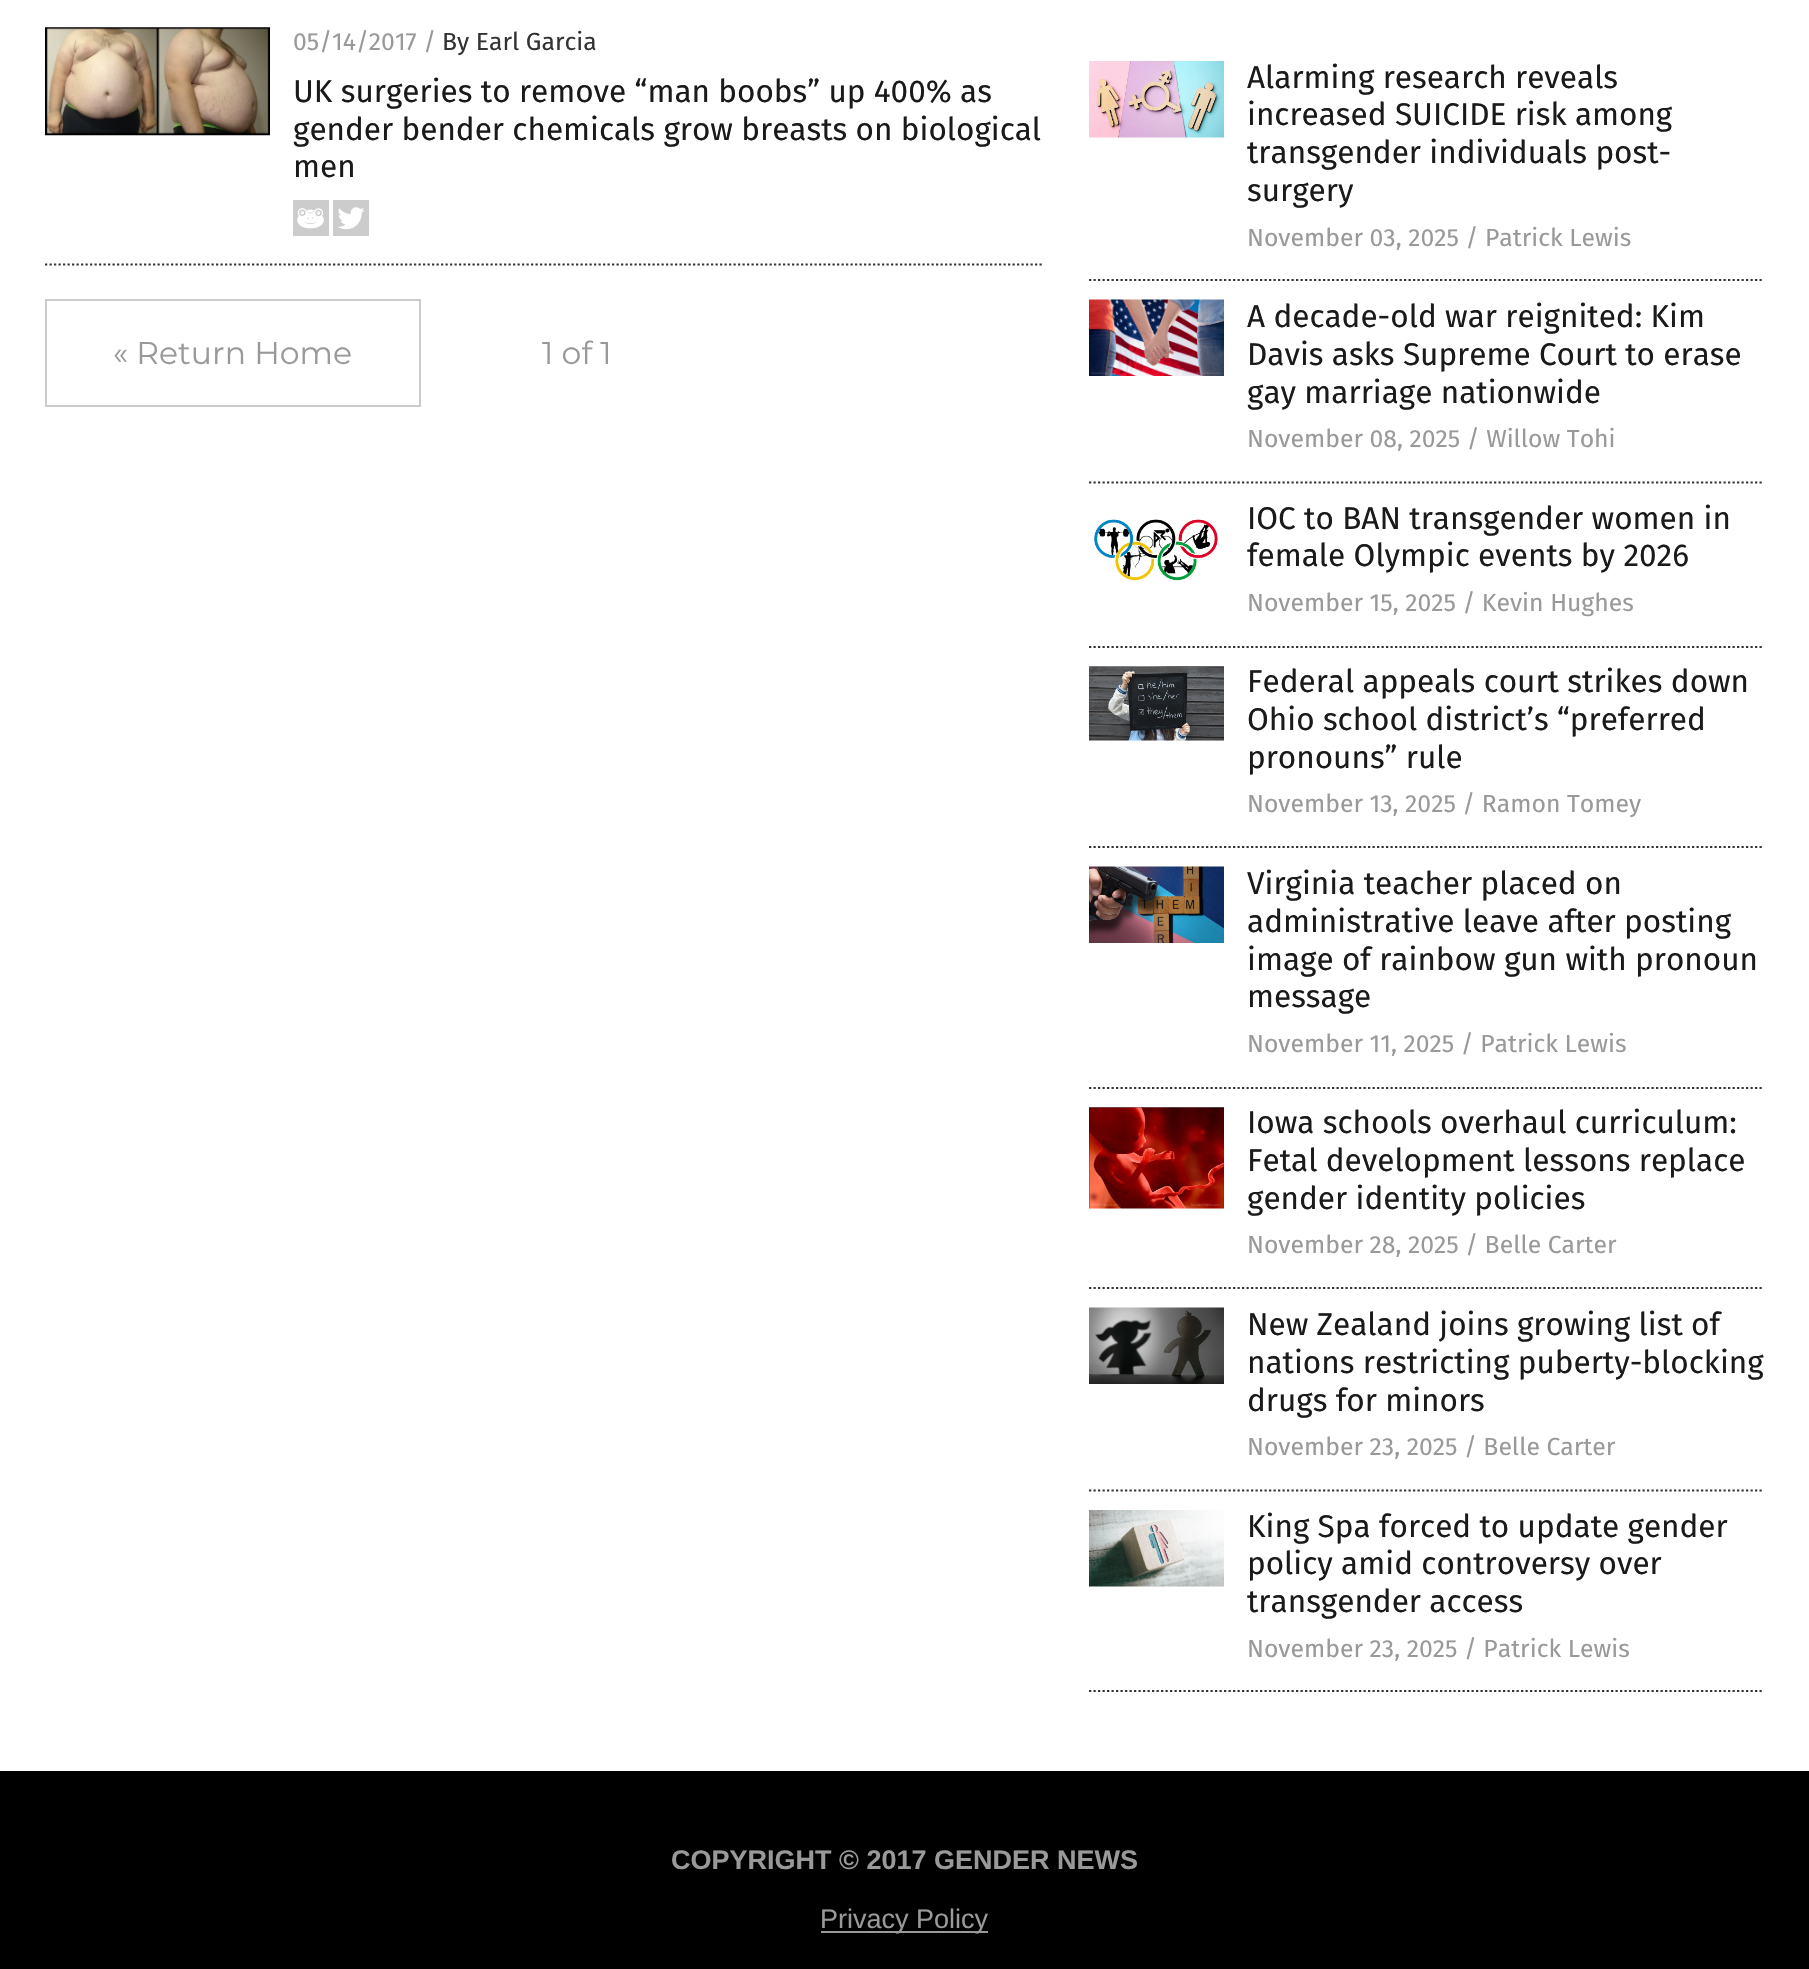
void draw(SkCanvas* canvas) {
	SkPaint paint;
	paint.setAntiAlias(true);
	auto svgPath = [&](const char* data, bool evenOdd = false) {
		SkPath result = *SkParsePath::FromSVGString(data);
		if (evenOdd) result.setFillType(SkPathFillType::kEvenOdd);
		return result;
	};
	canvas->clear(0xff000000);
	paint.setColor(0xffffffff);
	canvas->drawRect(SkRect::MakeXYWH(0, 0, 1809, 1771), paint);
	paint.setStroke(true);
	paint.setStrokeWidth(2.2);
	paint.setColor(0xff343434);
	paint.setPathEffect(SkDashPathEffect::Make({{2.25f, 2.25f}}, 0));
	canvas->drawPath(svgPath("M45 264.5H1044"), paint);
	paint.setPathEffect(nullptr);
	canvas->drawImageRect(SkImages::DeferredFromEncodedData(SkData::MakeFromFileName("img1.png")), SkRect::MakeXYWH(45, 27, 225, 109), SkSamplingOptions());
	SkFont f1(fontMgr->matchFamilyStyle("Fira Sans", SkFontStyle::Normal()), 24.75);
	f1.setSubpixel(true);
	paint.setStroke(false);
	paint.setColor(0xff999999);
	canvas->drawString("05/14/2017 /", 293, 50, f1, paint);
	paint.setColor(0xff333333);
	canvas->drawString("By Earl Garcia", 442, 50, f1, paint);
	SkFont f2(fontMgr->matchFamilyStyle("Fira Sans", SkFontStyle::Normal()), 31.5);
	f2.setSubpixel(true);
	paint.setColor(0xff1a1a1a);
	canvas->drawString("UK surgeries to remove “man boobs” up 400% as", 293, 102, f2, paint);
	canvas->drawString("gender bender chemicals grow breasts on biological", 293, 140, f2, paint);
	canvas->drawString("men", 293, 177, f2, paint);
	canvas->drawImageRect(SkImages::DeferredFromEncodedData(SkData::MakeFromFileName("img2.png")), SkRect::MakeXYWH(293, 200, 36, 36), SkSamplingOptions());
	canvas->drawImageRect(SkImages::DeferredFromEncodedData(SkData::MakeFromFileName("img3.png")), SkRect::MakeXYWH(333, 200, 36, 36), SkSamplingOptions());
	paint.setStroke(true);
	paint.setStrokeWidth(2);
	paint.setColor(0xffcccccc);
	canvas->drawRect(SkRect::MakeXYWH(46, 300, 374, 106), paint);
	SkFont f3(fontMgr->matchFamilyStyle("Montserrat", SkFontStyle::Normal()), 31.5);
	f3.setSubpixel(true);
	paint.setStroke(false);
	paint.setColor(0xff999999);
	canvas->drawString("« Return Home", 113, 364, f3, paint);
	canvas->drawString("1 of 1", 542, 364, f3, paint);
	paint.setStroke(true);
	paint.setStrokeWidth(2.2);
	paint.setColor(0xff343434);
	paint.setPathEffect(SkDashPathEffect::Make({{2.25f, 2.25f}}, 0));
	canvas->drawPath(svgPath("M1089 280H1764"), paint);
	paint.setPathEffect(nullptr);
	canvas->drawImageRect(SkImages::DeferredFromEncodedData(SkData::MakeFromFileName("img4.png")), SkRect::MakeXYWH(1089, 61, 135, 77), SkSamplingOptions());
	paint.setStroke(false);
	paint.setColor(0xff1a1a1a);
	canvas->drawString("Alarming research reveals", 1247, 88, f2, paint);
	canvas->drawString("increased SUICIDE risk among", 1247, 125, f2, paint);
	canvas->drawString("transgender individuals post-", 1247, 163, f2, paint);
	canvas->drawString("surgery", 1247, 201, f2, paint);
	paint.setColor(0xff999999);
	canvas->drawString("November 03, 2025 / Patrick Lewis", 1247, 246, f1, paint);
	paint.setStroke(true);
	paint.setColor(0xff343434);
	paint.setPathEffect(SkDashPathEffect::Make({{2.25f, 2.25f}}, 0));
	canvas->drawPath(svgPath("M1089 482.5H1764"), paint);
	paint.setPathEffect(nullptr);
	canvas->drawImageRect(SkImages::DeferredFromEncodedData(SkData::MakeFromFileName("img5.png")), SkRect::MakeXYWH(1089, 299, 135, 77), SkSamplingOptions());
	paint.setStroke(false);
	paint.setColor(0xff1a1a1a);
	canvas->drawString("A decade-old war reignited: Kim", 1247, 327, f2, paint);
	canvas->drawString("Davis asks Supreme Court to erase", 1247, 365, f2, paint);
	canvas->drawString("gay marriage nationwide", 1247, 403, f2, paint);
	paint.setColor(0xff999999);
	canvas->drawString("November 08, 2025 / Willow Tohi", 1247, 447, f1, paint);
	paint.setStroke(true);
	paint.setColor(0xff343434);
	paint.setPathEffect(SkDashPathEffect::Make({{2.25f, 2.25f}}, 0));
	canvas->drawPath(svgPath("M1089 647H1764"), paint);
	paint.setPathEffect(nullptr);
	canvas->drawImageRect(SkImages::DeferredFromEncodedData(SkData::MakeFromFileName("img6.png")), SkRect::MakeXYWH(1094, 519, 124, 62), SkSamplingOptions());
	paint.setStroke(false);
	paint.setColor(0xff1a1a1a);
	canvas->drawString("IOC to BAN transgender women in", 1247, 529, f2, paint);
	canvas->drawString("female Olympic events by 2026", 1247, 566, f2, paint);
	paint.setColor(0xff999999);
	canvas->drawString("November 15, 2025 / Kevin Hughes", 1247, 611, f1, paint);
	paint.setStroke(true);
	paint.setColor(0xff343434);
	paint.setPathEffect(SkDashPathEffect::Make({{2.25f, 2.25f}}, 0));
	canvas->drawPath(svgPath("M1089 847H1764"), paint);
	paint.setPathEffect(nullptr);
	canvas->drawImageRect(SkImages::DeferredFromEncodedData(SkData::MakeFromFileName("img7.png")), SkRect::MakeXYWH(1089, 666, 135, 75), SkSamplingOptions());
	paint.setStroke(false);
	paint.setColor(0xff1a1a1a);
	canvas->drawString("Federal appeals court strikes down", 1247, 692, f2, paint);
	canvas->drawString("Ohio school district’s “preferred", 1247, 730, f2, paint);
	canvas->drawString("pronouns” rule", 1247, 768, f2, paint);
	paint.setColor(0xff999999);
	canvas->drawString("November 13, 2025 / Ramon Tomey", 1247, 812, f1, paint);
	paint.setStroke(true);
	paint.setColor(0xff343434);
	paint.setPathEffect(SkDashPathEffect::Make({{2.25f, 2.25f}}, 0));
	canvas->drawPath(svgPath("M1089 1088H1764"), paint);
	paint.setPathEffect(nullptr);
	canvas->drawImageRect(SkImages::DeferredFromEncodedData(SkData::MakeFromFileName("img8.png")), SkRect::MakeXYWH(1089, 866, 135, 77), SkSamplingOptions());
	paint.setStroke(false);
	paint.setColor(0xff1a1a1a);
	canvas->drawString("Virginia teacher placed on", 1247, 894, f2, paint);
	canvas->drawString("administrative leave after posting", 1247, 932, f2, paint);
	canvas->drawString("image of rainbow gun with pronoun", 1247, 970, f2, paint);
	canvas->drawString("message", 1247, 1007, f2, paint);
	paint.setColor(0xff999999);
	canvas->drawString("November 11, 2025 / Patrick Lewis", 1247, 1052, f1, paint);
	paint.setStroke(true);
	paint.setColor(0xff343434);
	paint.setPathEffect(SkDashPathEffect::Make({{2.25f, 2.25f}}, 0));
	canvas->drawPath(svgPath("M1089 1288H1764"), paint);
	paint.setPathEffect(nullptr);
	canvas->drawImageRect(SkImages::DeferredFromEncodedData(SkData::MakeFromFileName("img9.png")), SkRect::MakeXYWH(1089, 1107, 135, 102), SkSamplingOptions());
	paint.setStroke(false);
	paint.setColor(0xff1a1a1a);
	canvas->drawString("Iowa schools overhaul curriculum:", 1247, 1133, f2, paint);
	canvas->drawString("Fetal development lessons replace", 1247, 1171, f2, paint);
	canvas->drawString("gender identity policies", 1247, 1209, f2, paint);
	paint.setColor(0xff999999);
	canvas->drawString("November 28, 2025 / Belle Carter", 1247, 1253, f1, paint);
	paint.setStroke(true);
	paint.setColor(0xff343434);
	paint.setPathEffect(SkDashPathEffect::Make({{2.25f, 2.25f}}, 0));
	canvas->drawPath(svgPath("M1089 1490.5H1764"), paint);
	paint.setPathEffect(nullptr);
	canvas->drawImageRect(SkImages::DeferredFromEncodedData(SkData::MakeFromFileName("img10.png")), SkRect::MakeXYWH(1089, 1307, 135, 77), SkSamplingOptions());
	paint.setStroke(false);
	paint.setColor(0xff1a1a1a);
	canvas->drawString("New Zealand joins growing list of", 1247, 1335, f2, paint);
	canvas->drawString("nations restricting puberty-blocking", 1247, 1373, f2, paint);
	canvas->drawString("drugs for minors", 1247, 1411, f2, paint);
	paint.setColor(0xff999999);
	canvas->drawString("November 23, 2025 / Belle Carter", 1247, 1455, f1, paint);
	paint.setStroke(true);
	paint.setColor(0xff343434);
	paint.setPathEffect(SkDashPathEffect::Make({{2.25f, 2.25f}}, 0));
	canvas->drawPath(svgPath("M1089 1691H1764"), paint);
	paint.setPathEffect(nullptr);
	canvas->drawImageRect(SkImages::DeferredFromEncodedData(SkData::MakeFromFileName("img11.png")), SkRect::MakeXYWH(1089, 1510, 135, 77), SkSamplingOptions());
	paint.setStroke(false);
	paint.setColor(0xff1a1a1a);
	canvas->drawString("King Spa forced to update gender", 1247, 1537, f2, paint);
	canvas->drawString("policy amid controversy over", 1247, 1574, f2, paint);
	canvas->drawString("transgender access", 1247, 1612, f2, paint);
	paint.setColor(0xff999999);
	canvas->drawString("November 23, 2025 / Patrick Lewis", 1247, 1657, f1, paint);
	SkFont f4(fontMgr->matchFamilyStyle("Liberation Sans", SkFontStyle::Bold()), 27);
	f4.setSubpixel(true);
	canvas->drawString("COPYRIGHT © 2017 GENDER NEWS", 671, 1869, f4, paint);
	canvas->drawRect(SkRect::MakeXYWH(821, 1931, 167, 2), paint);
	SkFont f5(fontMgr->matchFamilyStyle("Liberation Sans", SkFontStyle::Normal()), 27);
	f5.setSubpixel(true);
	canvas->drawString("Privacy Policy", 820, 1928, f5, paint);
}
